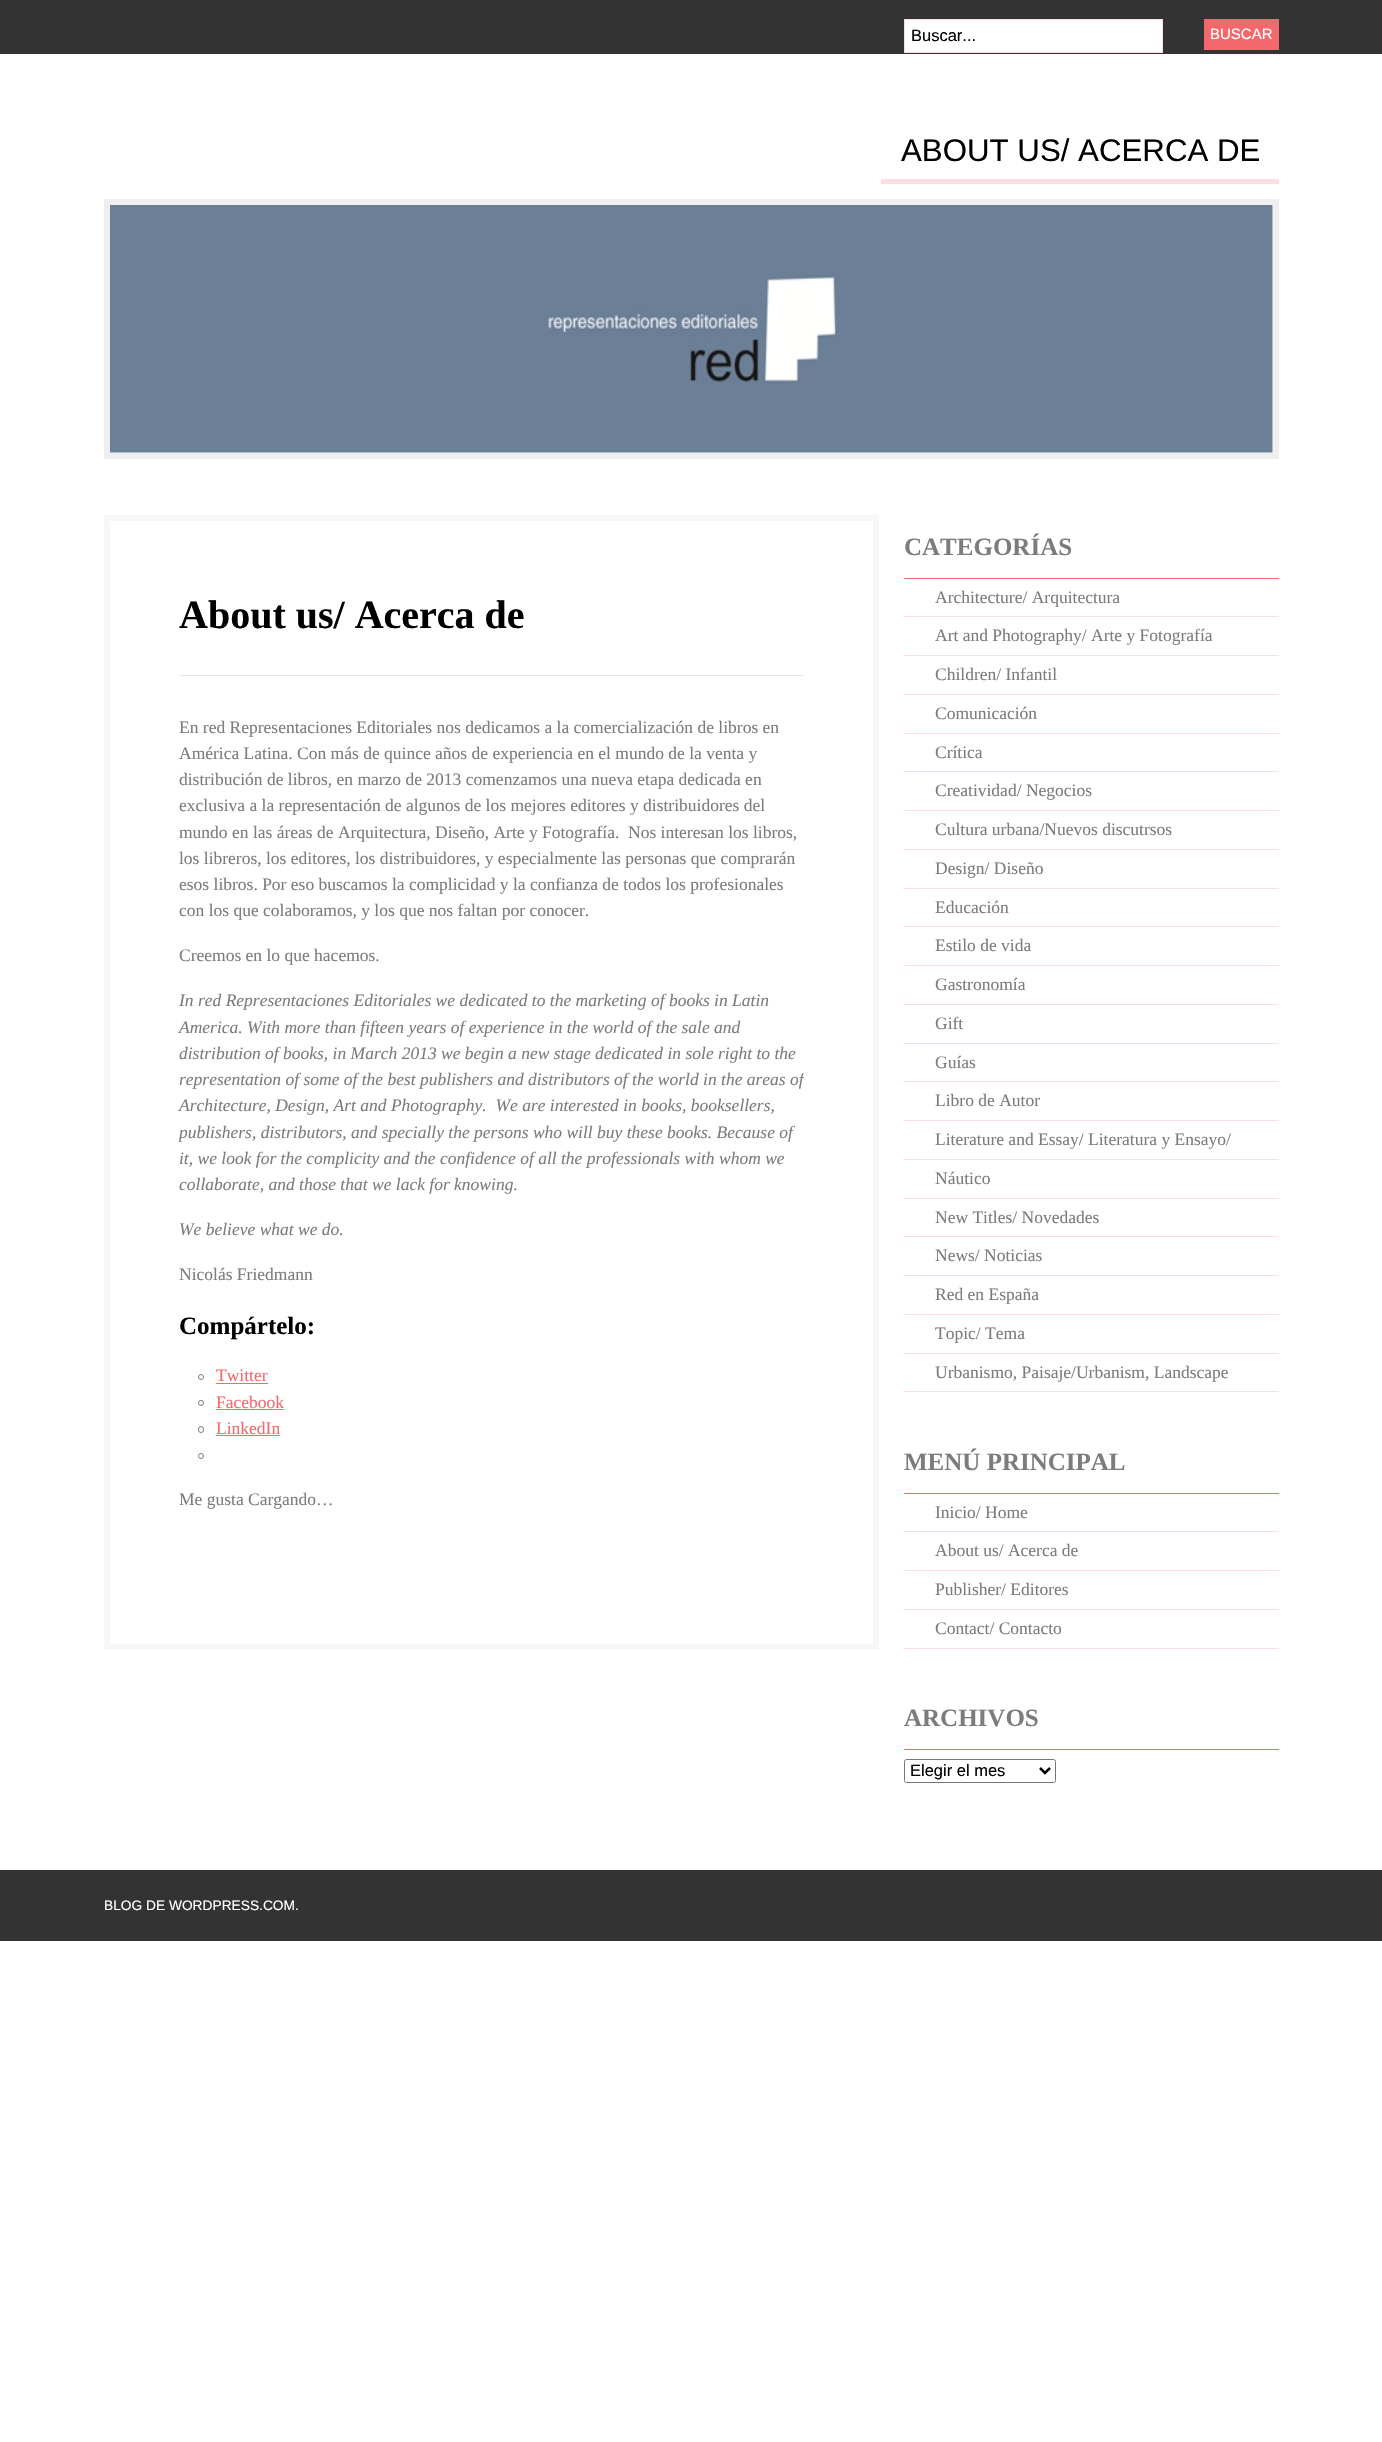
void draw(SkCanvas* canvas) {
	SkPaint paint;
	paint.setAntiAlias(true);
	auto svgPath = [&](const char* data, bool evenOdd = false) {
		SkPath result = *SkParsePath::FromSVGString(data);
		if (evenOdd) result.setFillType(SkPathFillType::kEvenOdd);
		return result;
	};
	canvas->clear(0xffffffff);
	paint.setColor(0xff333333);
	canvas->drawRect(SkRect::MakeXYWH(0, 0, 1382, 54), paint);
	paint.setColor(0xffffffff);
	canvas->drawRect(SkRect::MakeXYWH(904.5, 19.5, 258, 33), paint);
	paint.setStroke(true);
	paint.setStrokeWidth(1);
	paint.setColor(0xfffbdddf);
	canvas->drawRect(SkRect::MakeXYWH(904.5, 19.5, 258, 33), paint);
	SkFont f1(fontMgr->matchFamilyStyle("Liberation Sans", SkFontStyle::Normal()), 16.5);
	f1.setSubpixel(true);
	paint.setStroke(false);
	paint.setColor(0xff000000);
	canvas->drawString("Buscar...", 911, 41, f1, paint);
	paint.setColor(0xfff3686d);
	canvas->drawRect(SkRect::MakeXYWH(1204, 19, 75, 31), paint);
	SkFont f2(fontMgr->matchFamilyStyle("Liberation Sans", SkFontStyle::Normal()), 15);
	f2.setSubpixel(true);
	paint.setColor(0xffffffff);
	canvas->drawString("BUSCAR", 1210, 39, f2, paint);
	paint.setColor(0xfffbdddf);
	canvas->drawRect(SkRect::MakeXYWH(881, 179, 398, 5), paint);
	SkFont f3(fontMgr->matchFamilyStyle("Liberation Sans", SkFontStyle::Normal()), 31.25);
	f3.setSubpixel(true);
	paint.setColor(0xff000000);
	canvas->drawString("ABOUT US/ ACERCA DE", 901, 161, f3, paint);
	paint.setStroke(true);
	paint.setStrokeWidth(6);
	paint.setColor(0xffefefef);
	canvas->drawRect(SkRect::MakeXYWH(107, 202, 1169, 254), paint);
	canvas->drawImageRect(SkImages::DeferredFromEncodedData(SkData::MakeFromFileName("img1.png")), SkRect::MakeXYWH(110, 205, 1163, 248), SkSamplingOptions());
	paint.setColor(0xfff7f7f7);
	canvas->drawRect(SkRect::MakeXYWH(107, 518, 769, 1129), paint);
	paint.setStroke(false);
	paint.setColor(0xffe7e7e7);
	canvas->drawRect(SkRect::MakeXYWH(179, 675, 625, 1), paint);
	SkFont f4(fontMgr->matchFamilyStyle("Liberation Serif", SkFontStyle::Bold()), 40);
	f4.setSubpixel(true);
	paint.setColor(0xff000000);
	canvas->drawString("About us/ Acerca de", 179, 628, f4, paint);
	SkFont f5(fontMgr->matchFamilyStyle("Liberation Serif", SkFontStyle::Normal()), 17.5);
	f5.setSubpixel(true);
	paint.setColor(0xff7c7c7c);
	canvas->drawString("En red Representaciones Editoriales nos dedicamos a la comercialización de libros en", 179, 733, f5, paint);
	canvas->drawString("América Latina. Con más de quince años de experiencia en el mundo de la venta y", 179, 759, f5, paint);
	canvas->drawString("distribución de libros, en marzo de 2013 comenzamos una nueva etapa dedicada en", 179, 785, f5, paint);
	canvas->drawString("exclusiva a la representación de algunos de los mejores editores y distribuidores del", 179, 811, f5, paint);
	canvas->drawString("mundo en las áreas de Arquitectura, Diseño, Arte y Fotografía.  Nos interesan los libros,", 179, 838, f5, paint);
	canvas->drawString("los libreros, los editores, los distribuidores, y especialmente las personas que comprarán", 179, 864, f5, paint);
	canvas->drawString("esos libros. Por eso buscamos la complicidad y la confianza de todos los profesionales", 179, 890, f5, paint);
	canvas->drawString("con los que colaboramos, y los que nos faltan por conocer.", 179, 916, f5, paint);
	canvas->drawString("Creemos en lo que hacemos.", 179, 961, f5, paint);
	SkFont f6(fontMgr->matchFamilyStyle("Liberation Serif", SkFontStyle::Italic()), 17.5);
	f6.setSubpixel(true);
	canvas->drawString("In red Representaciones Editoriales we dedicated to the marketing of books in Latin", 179, 1006, f6, paint);
	canvas->drawString("America. With more than fifteen years of experience in the world of the sale and", 179, 1033, f6, paint);
	canvas->drawString("distribution of books, in March 2013 we begin a new stage dedicated in sole right to the", 179, 1059, f6, paint);
	canvas->save();
	canvas->clipRect(SkRect::MakeXYWH(179, 714, 625, 867));
	canvas->drawString("representation of some of the best publishers and distributors of the world in the areas of", 179, 1085, f6, paint);
	canvas->restore();
	canvas->drawString("Architecture, Design, Art and Photography.  We are interested in books, booksellers,", 179, 1111, f6, paint);
	canvas->save();
	canvas->clipRect(SkRect::MakeXYWH(179, 714, 625, 867));
	canvas->drawString("publishers, distributors, and specially the persons who will buy these books. Because of", 179, 1138, f6, paint);
	canvas->restore();
	canvas->drawString("it, we look for the complicity and the confidence of all the professionals with whom we", 179, 1164, f6, paint);
	canvas->drawString("collaborate, and those that we lack for knowing.", 179, 1190, f6, paint);
	canvas->drawString("We believe what we do.", 179, 1235, f6, paint);
	canvas->drawString("Nicolás Friedmann", 179, 1280, f5, paint);
	SkFont f7(fontMgr->matchFamilyStyle("Liberation Serif", SkFontStyle::Bold()), 25);
	f7.setSubpixel(true);
	paint.setColor(0xff000000);
	canvas->drawString("Compártelo:", 179, 1334, f7, paint);
	paint.setStroke(true);
	paint.setStrokeWidth(1);
	paint.setColor(0xff7a7a7a);
	canvas->drawCircle(201, 1377, 2.5, paint);
	paint.setStroke(false);
	paint.setColor(0xfff3686d);
	canvas->drawString("Twitter", 216, 1381, f5, paint);
	canvas->drawRect(SkRect::MakeXYWH(216, 1383, 52, 1), paint);
	paint.setStroke(true);
	paint.setColor(0xff7a7a7a);
	canvas->drawCircle(201, 1403, 2.5, paint);
	paint.setStroke(false);
	paint.setColor(0xfff3686d);
	canvas->drawString("Facebook", 216, 1408, f5, paint);
	canvas->drawRect(SkRect::MakeXYWH(216, 1409, 68, 1), paint);
	paint.setStroke(true);
	paint.setColor(0xff7a7a7a);
	canvas->drawRoundRect(SkRect::MakeXYWH(198.5, 1426.5, 5, 6), 2.5, 2.5, paint);
	paint.setStroke(false);
	paint.setColor(0xfff3686d);
	canvas->drawString("LinkedIn", 216, 1434, f5, paint);
	canvas->drawRect(SkRect::MakeXYWH(216, 1435, 64, 1), paint);
	paint.setStroke(true);
	paint.setColor(0xff7a7a7a);
	canvas->drawCircle(201, 1456, 2.5, paint);
	paint.setStroke(false);
	paint.setColor(0xff7c7c7c);
	canvas->drawString("Me gusta Cargando…", 179, 1505, f5, paint);
	paint.setColor(0xfff3686d);
	canvas->drawRect(SkRect::MakeXYWH(904, 578, 375, 1), paint);
	paint.setColor(0xff7c7c7c);
	canvas->drawString("CATEGORÍAS", 904, 555, f7, paint);
	paint.setColor(0xfffbdddf);
	canvas->drawRect(SkRect::MakeXYWH(904, 616, 375, 1), paint);
	paint.setColor(0xff7c7c7c);
	canvas->drawString("Architecture/ Arquitectura", 935, 603, f5, paint);
	paint.setColor(0xfffbdddf);
	canvas->drawRect(SkRect::MakeXYWH(904, 655, 375, 1), paint);
	paint.setColor(0xff7c7c7c);
	canvas->drawString("Art and Photography/ Arte y Fotografía", 935, 641, f5, paint);
	paint.setColor(0xfffbdddf);
	canvas->drawRect(SkRect::MakeXYWH(904, 694, 375, 1), paint);
	paint.setColor(0xff7c7c7c);
	canvas->drawString("Children/ Infantil", 935, 680, f5, paint);
	paint.setColor(0xfffbdddf);
	canvas->drawRect(SkRect::MakeXYWH(904, 733, 375, 1), paint);
	paint.setColor(0xff7c7c7c);
	canvas->drawString("Comunicación", 935, 719, f5, paint);
	paint.setColor(0xfffbdddf);
	canvas->drawRect(SkRect::MakeXYWH(904, 771, 375, 1), paint);
	paint.setColor(0xff7c7c7c);
	canvas->drawString("Crítica", 935, 758, f5, paint);
	paint.setColor(0xfffbdddf);
	canvas->drawRect(SkRect::MakeXYWH(904, 810, 375, 1), paint);
	paint.setColor(0xff7c7c7c);
	canvas->drawString("Creatividad/ Negocios", 935, 796, f5, paint);
	paint.setColor(0xfffbdddf);
	canvas->drawRect(SkRect::MakeXYWH(904, 849, 375, 1), paint);
	paint.setColor(0xff7c7c7c);
	canvas->drawString("Cultura urbana/Nuevos discutrsos", 935, 835, f5, paint);
	paint.setColor(0xfffbdddf);
	canvas->drawRect(SkRect::MakeXYWH(904, 888, 375, 1), paint);
	paint.setColor(0xff7c7c7c);
	canvas->drawString("Design/ Diseño", 935, 874, f5, paint);
	paint.setColor(0xfffbdddf);
	canvas->drawRect(SkRect::MakeXYWH(904, 926, 375, 1), paint);
	paint.setColor(0xff7c7c7c);
	canvas->drawString("Educación", 935, 913, f5, paint);
	paint.setColor(0xfffbdddf);
	canvas->drawRect(SkRect::MakeXYWH(904, 965, 375, 1), paint);
	paint.setColor(0xff7c7c7c);
	canvas->drawString("Estilo de vida", 935, 951, f5, paint);
	paint.setColor(0xfffbdddf);
	canvas->drawRect(SkRect::MakeXYWH(904, 1004, 375, 1), paint);
	paint.setColor(0xff7c7c7c);
	canvas->drawString("Gastronomía", 935, 990, f5, paint);
	paint.setColor(0xfffbdddf);
	canvas->drawRect(SkRect::MakeXYWH(904, 1043, 375, 1), paint);
	paint.setColor(0xff7c7c7c);
	canvas->drawString("Gift", 935, 1029, f5, paint);
	paint.setColor(0xfffbdddf);
	canvas->drawRect(SkRect::MakeXYWH(904, 1081, 375, 1), paint);
	paint.setColor(0xff7c7c7c);
	canvas->drawString("Guías", 935, 1068, f5, paint);
	paint.setColor(0xfffbdddf);
	canvas->drawRect(SkRect::MakeXYWH(904, 1120, 375, 1), paint);
	paint.setColor(0xff7c7c7c);
	canvas->drawString("Libro de Autor", 935, 1106, f5, paint);
	paint.setColor(0xfffbdddf);
	canvas->drawRect(SkRect::MakeXYWH(904, 1159, 375, 1), paint);
	paint.setColor(0xff7c7c7c);
	canvas->drawString("Literature and Essay/ Literatura y Ensayo/", 935, 1145, f5, paint);
	paint.setColor(0xfffbdddf);
	canvas->drawRect(SkRect::MakeXYWH(904, 1198, 375, 1), paint);
	paint.setColor(0xff7c7c7c);
	canvas->drawString("Náutico", 935, 1184, f5, paint);
	paint.setColor(0xfffbdddf);
	canvas->drawRect(SkRect::MakeXYWH(904, 1236, 375, 1), paint);
	paint.setColor(0xff7c7c7c);
	canvas->drawString("New Titles/ Novedades", 935, 1223, f5, paint);
	paint.setColor(0xfffbdddf);
	canvas->drawRect(SkRect::MakeXYWH(904, 1275, 375, 1), paint);
	paint.setColor(0xff7c7c7c);
	canvas->drawString("News/ Noticias", 935, 1261, f5, paint);
	paint.setColor(0xfffbdddf);
	canvas->drawRect(SkRect::MakeXYWH(904, 1314, 375, 1), paint);
	paint.setColor(0xff7c7c7c);
	canvas->drawString("Red en España", 935, 1300, f5, paint);
	paint.setColor(0xfffbdddf);
	canvas->drawRect(SkRect::MakeXYWH(904, 1353, 375, 1), paint);
	paint.setColor(0xff7c7c7c);
	canvas->drawString("Topic/ Tema", 935, 1339, f5, paint);
	paint.setColor(0xfffbdddf);
	canvas->drawRect(SkRect::MakeXYWH(904, 1391, 375, 1), paint);
	paint.setColor(0xff7c7c7c);
	canvas->drawString("Urbanismo, Paisaje/Urbanism, Landscape", 935, 1378, f5, paint);
	paint.setColor(0xfff3686d);
	canvas->drawRect(SkRect::MakeXYWH(904, 1493, 375, 1), paint);
	paint.setColor(0xff7c7c7c);
	canvas->drawString("MENÚ PRINCIPAL", 904, 1470, f7, paint);
	paint.setColor(0xfffbdddf);
	canvas->drawRect(SkRect::MakeXYWH(904, 1531, 375, 1), paint);
	paint.setColor(0xff7c7c7c);
	canvas->drawString("Inicio/ Home", 935, 1518, f5, paint);
	paint.setColor(0xfffbdddf);
	canvas->drawRect(SkRect::MakeXYWH(904, 1570, 375, 1), paint);
	paint.setColor(0xff7c7c7c);
	canvas->drawString("About us/ Acerca de", 935, 1556, f5, paint);
	paint.setColor(0xfffbdddf);
	canvas->drawRect(SkRect::MakeXYWH(904, 1609, 375, 1), paint);
	paint.setColor(0xff7c7c7c);
	canvas->drawString("Publisher/ Editores", 935, 1595, f5, paint);
	paint.setColor(0xfffbdddf);
	canvas->drawRect(SkRect::MakeXYWH(904, 1648, 375, 1), paint);
	paint.setColor(0xff7c7c7c);
	canvas->drawString("Contact/ Contacto", 935, 1634, f5, paint);
	paint.setColor(0xfff3686d);
	canvas->drawRect(SkRect::MakeXYWH(904, 1749, 375, 1), paint);
	paint.setColor(0xff7c7c7c);
	canvas->drawString("ARCHIVOS", 904, 1726, f7, paint);
	paint.setStroke(true);
	paint.setColor(0xff767676);
	canvas->drawRoundRect(SkRect::MakeXYWH(904.5, 1759.5, 151, 23), 2, 2, paint);
	paint.setStrokeWidth(2.5);
	paint.setColor(0xff000000);
	canvas->drawPath(svgPath("M1040 1768L1045 1773L1050 1768"), paint);
	paint.setStroke(false);
	canvas->drawString("Elegir el mes", 910, 1776, f1, paint);
	paint.setColor(0xff333333);
	canvas->drawRect(SkRect::MakeXYWH(0, 1870, 1382, 71), paint);
	SkFont f8(fontMgr->matchFamilyStyle("Liberation Sans", SkFontStyle::Normal()), 13.75);
	f8.setSubpixel(true);
	paint.setColor(0xffffffff);
	canvas->drawString("BLOG DE WORDPRESS.COM.", 104, 1910, f8, paint);
}
